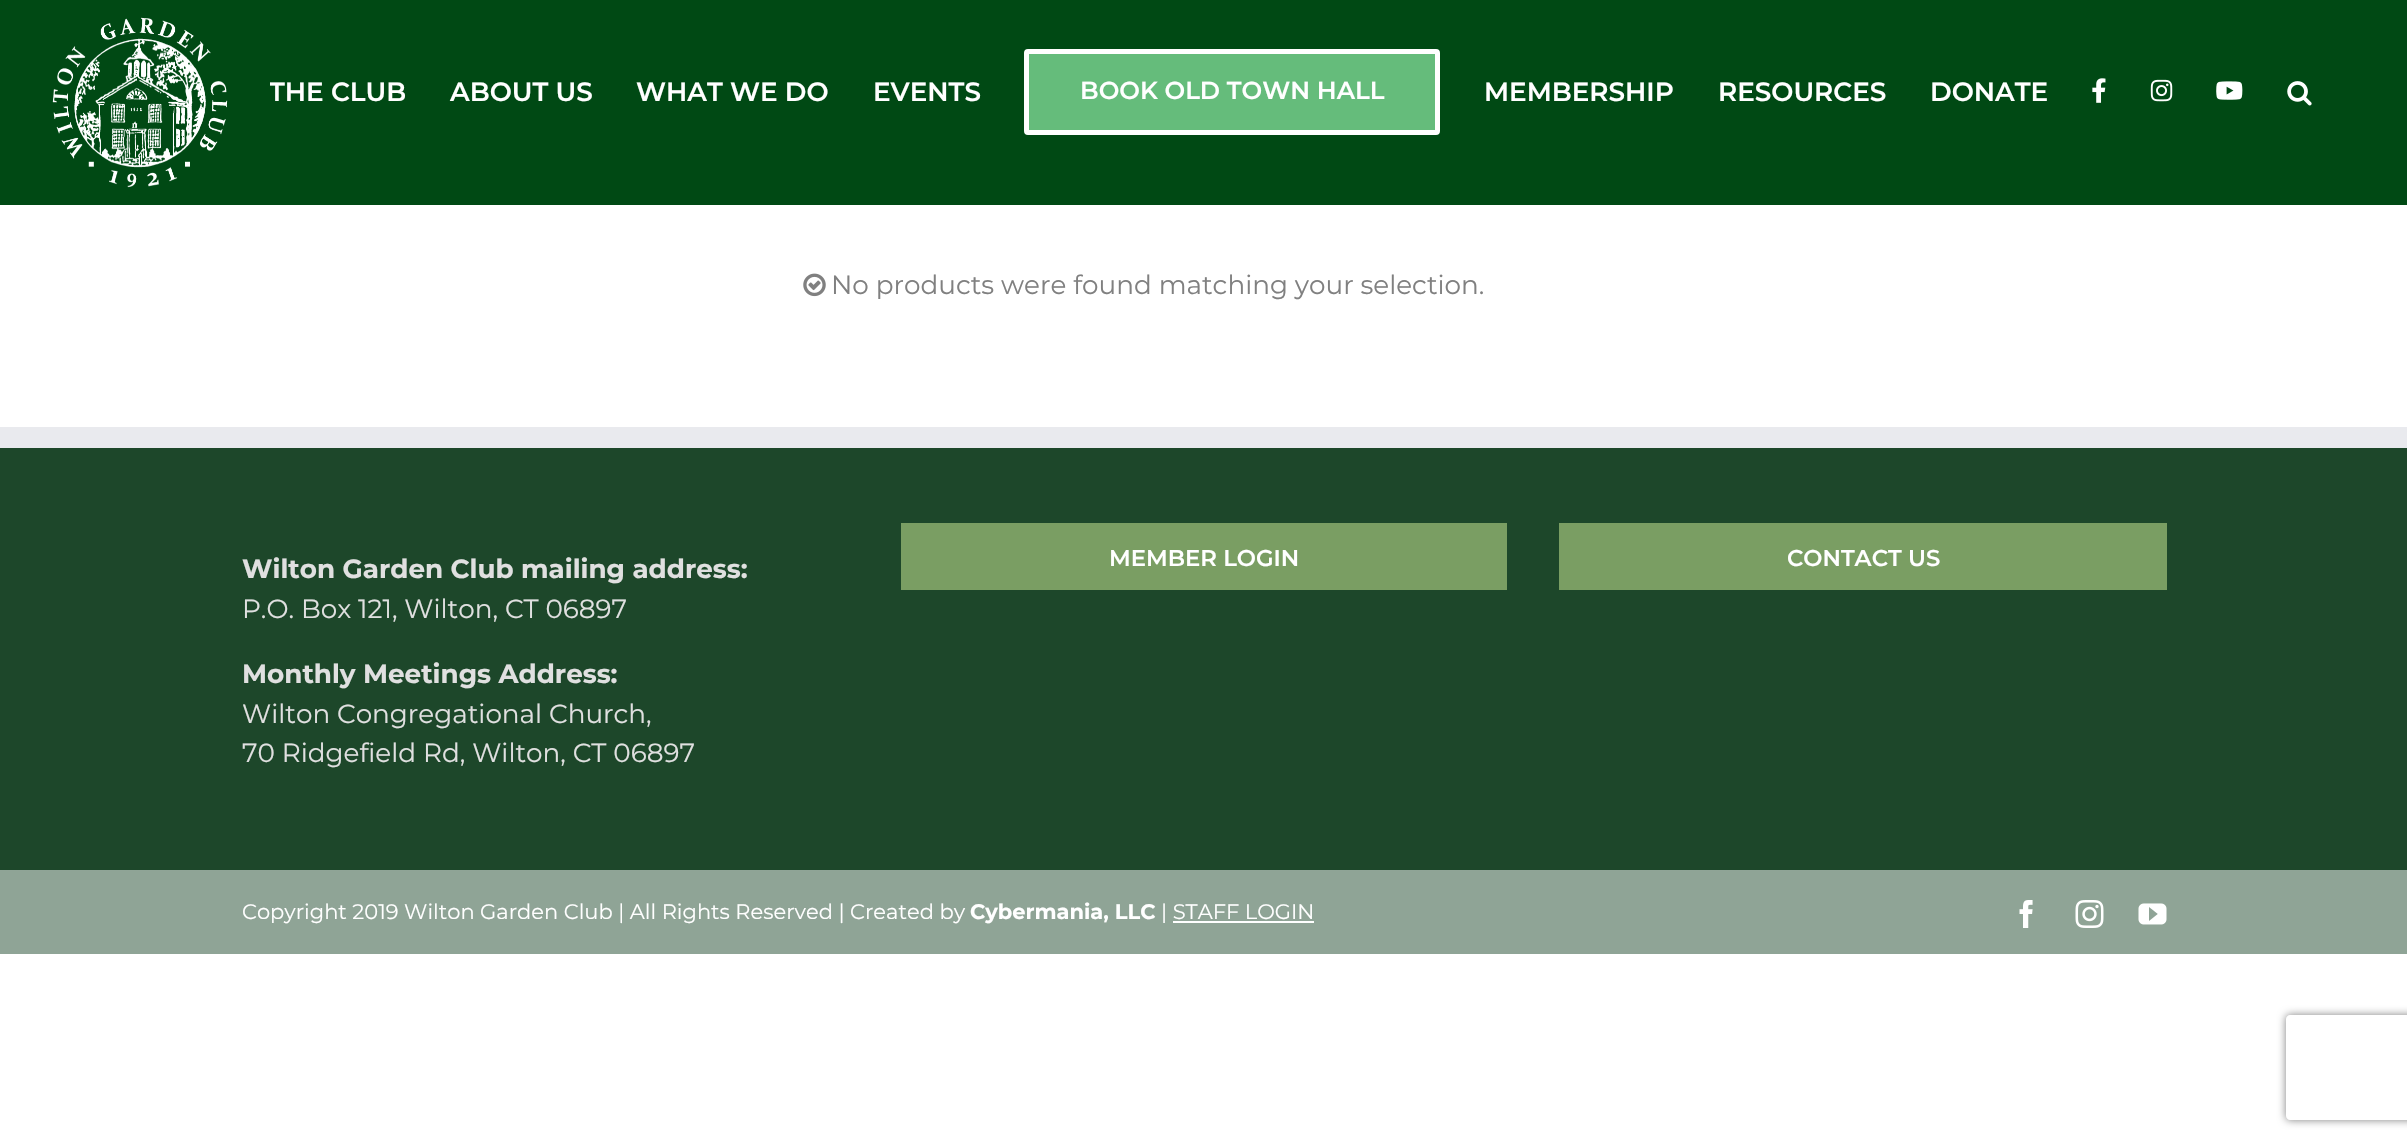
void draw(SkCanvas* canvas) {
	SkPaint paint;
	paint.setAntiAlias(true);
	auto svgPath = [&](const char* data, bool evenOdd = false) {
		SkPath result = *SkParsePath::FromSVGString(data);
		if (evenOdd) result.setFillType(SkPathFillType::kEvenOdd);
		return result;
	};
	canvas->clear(0xffffffff);
	paint.setColor(0xff004914);
	canvas->drawRect(SkRect::MakeXYWH(0, 0, 2407, 205), paint);
	canvas->drawImageRect(SkImages::DeferredFromEncodedData(SkData::MakeFromFileName("img1.png")), SkRect::MakeXYWH(52, 17, 176, 171), SkSamplingOptions());
	canvas->save();
	canvas->clipRect(SkRect::MakeXYWH(270, 18, 2086, 147));
	SkFont f1(fontMgr->matchFamilyStyle("Montserrat", SkFontStyle(600, SkFontStyle::kNormal_Width, SkFontStyle::kUpright_Slant)), 26.25);
	f1.setSubpixel(true);
	paint.setColor(0xffffffff);
	canvas->drawString("THE CLUB", 269, 101, f1, paint);
	canvas->restore();
	canvas->drawString("ABOUT US", 450, 101, f1, paint);
	canvas->drawString("WHAT WE DO", 636, 101, f1, paint);
	canvas->drawString("EVENTS", 873, 101, f1, paint);
	paint.setColor(0xff65bc7b);
	canvas->drawRoundRect(SkRect::MakeXYWH(1026.5, 51.5, 411, 81), 1.5, 1.5, paint);
	paint.setStroke(true);
	paint.setStrokeWidth(5);
	paint.setColor(0xffffffff);
	canvas->drawRoundRect(SkRect::MakeXYWH(1026.5, 51.5, 411, 81), 1.5, 1.5, paint);
	SkFont f2(fontMgr->matchFamilyStyle("Montserrat", SkFontStyle(600, SkFontStyle::kNormal_Width, SkFontStyle::kUpright_Slant)), 24.5);
	f2.setSubpixel(true);
	paint.setStroke(false);
	canvas->drawString("BOOK OLD TOWN HALL", 1080, 99, f2, paint);
	canvas->drawString("MEMBERSHIP", 1484, 101, f1, paint);
	canvas->drawString("RESOURCES", 1718, 101, f1, paint);
	canvas->drawString("DONATE", 1930, 101, f1, paint);
	canvas->drawImageRect(SkImages::DeferredFromEncodedData(SkData::MakeFromFileName("img2.png")), SkRect::MakeXYWH(2092, 78, 14, 25), SkSamplingOptions());
	canvas->drawImageRect(SkImages::DeferredFromEncodedData(SkData::MakeFromFileName("img3.png")), SkRect::MakeXYWH(2150, 79, 23, 23), SkSamplingOptions());
	canvas->drawImageRect(SkImages::DeferredFromEncodedData(SkData::MakeFromFileName("img4.png")), SkRect::MakeXYWH(2216, 81, 27, 19), SkSamplingOptions());
	canvas->drawImageRect(SkImages::DeferredFromEncodedData(SkData::MakeFromFileName("img5.png")), SkRect::MakeXYWH(2287, 81, 25, 25), SkSamplingOptions());
	canvas->drawImageRect(SkImages::DeferredFromEncodedData(SkData::MakeFromFileName("img6.png")), SkRect::MakeXYWH(803, 273, 23, 24), SkSamplingOptions());
	SkFont f3(fontMgr->matchFamilyStyle("Montserrat", SkFontStyle::Normal()), 26.25);
	f3.setSubpixel(true);
	paint.setColor(0xff808080);
	canvas->drawString("No products were found matching your selection.", 831, 294, f3, paint);
	paint.setColor(0xff1d472a);
	canvas->drawRect(SkRect::MakeXYWH(0, 448, 2407, 422), paint);
	paint.setColor(0xffe9eaee);
	canvas->drawRect(SkRect::MakeXYWH(0, 427, 2407, 21), paint);
	SkFont f4(fontMgr->matchFamilyStyle("Montserrat", SkFontStyle::Bold()), 26.25);
	f4.setSubpixel(true);
	paint.setColor(0xffe0e0e0);
	canvas->drawString("Wilton Garden Club mailing address:", 242, 578, f4, paint);
	canvas->drawString("P.O. Box 121, Wilton, CT 06897", 242, 618, f3, paint);
	canvas->drawString("Monthly Meetings Address:", 242, 683, f4, paint);
	canvas->drawString("Wilton Congregational Church,", 242, 723, f3, paint);
	canvas->drawString("70 Ridgefield Rd, Wilton, CT 06897", 242, 762, f3, paint);
	paint.setColor(0xff7a9e63);
	canvas->drawRect(SkRect::MakeXYWH(901, 523, 606, 67), paint);
	SkFont f5(fontMgr->matchFamilyStyle("Montserrat", SkFontStyle(600, SkFontStyle::kNormal_Width, SkFontStyle::kUpright_Slant)), 22.75);
	f5.setSubpixel(true);
	paint.setColor(0xffffffff);
	canvas->drawString("MEMBER LOGIN", 1109, 566, f5, paint);
	paint.setColor(0xff7a9e63);
	canvas->drawRect(SkRect::MakeXYWH(1559, 523, 608, 67), paint);
	paint.setColor(0xffffffff);
	canvas->drawString("CONTACT US", 1787, 566, f5, paint);
	paint.setColor(0xff8fa496);
	canvas->drawRect(SkRect::MakeXYWH(0, 870, 2407, 84), paint);
	SkFont f6(fontMgr->matchFamilyStyle("Montserrat", SkFontStyle::Normal()), 21);
	f6.setSubpixel(true);
	paint.setColor(0xffffffff);
	canvas->drawString("Copyright 2019 Wilton Garden Club | All Rights Reserved | Created by", 242, 919, f6, paint);
	SkFont f7(fontMgr->matchFamilyStyle("Montserrat", SkFontStyle::Bold()), 21);
	f7.setSubpixel(true);
	canvas->drawString("Cybermania, LLC", 970, 919, f7, paint);
	canvas->drawString("| STAFF LOGIN", 1161, 919, f6, paint);
	canvas->drawRect(SkRect::MakeXYWH(1173, 921, 141, 2), paint);
	canvas->drawImageRect(SkImages::DeferredFromEncodedData(SkData::MakeFromFileName("img7.png")), SkRect::MakeXYWH(2019, 900, 14, 28), SkSamplingOptions());
	canvas->drawImageRect(SkImages::DeferredFromEncodedData(SkData::MakeFromFileName("img8.png")), SkRect::MakeXYWH(2075, 900, 29, 28), SkSamplingOptions());
	canvas->drawImageRect(SkImages::DeferredFromEncodedData(SkData::MakeFromFileName("img9.png")), SkRect::MakeXYWH(2138, 903, 29, 22), SkSamplingOptions());
	canvas->save();
	canvas->clipPath(svgPath("M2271 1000H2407V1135H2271ZM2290 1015H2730C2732 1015 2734 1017 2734 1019V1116C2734 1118 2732 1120 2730 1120H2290C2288 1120 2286 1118 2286 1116V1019C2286 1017 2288 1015 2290 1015Z", true), true);
	paint.setColor(0xff808080);
	paint.setMaskFilter(SkMaskFilter::MakeBlur(kNormal_SkBlurStyle, 4.5));
	canvas->drawRoundRect(SkRect::MakeXYWH(2286, 1015, 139, 105), 4, 4, paint);
	paint.setMaskFilter(nullptr);
	canvas->restore();
}
